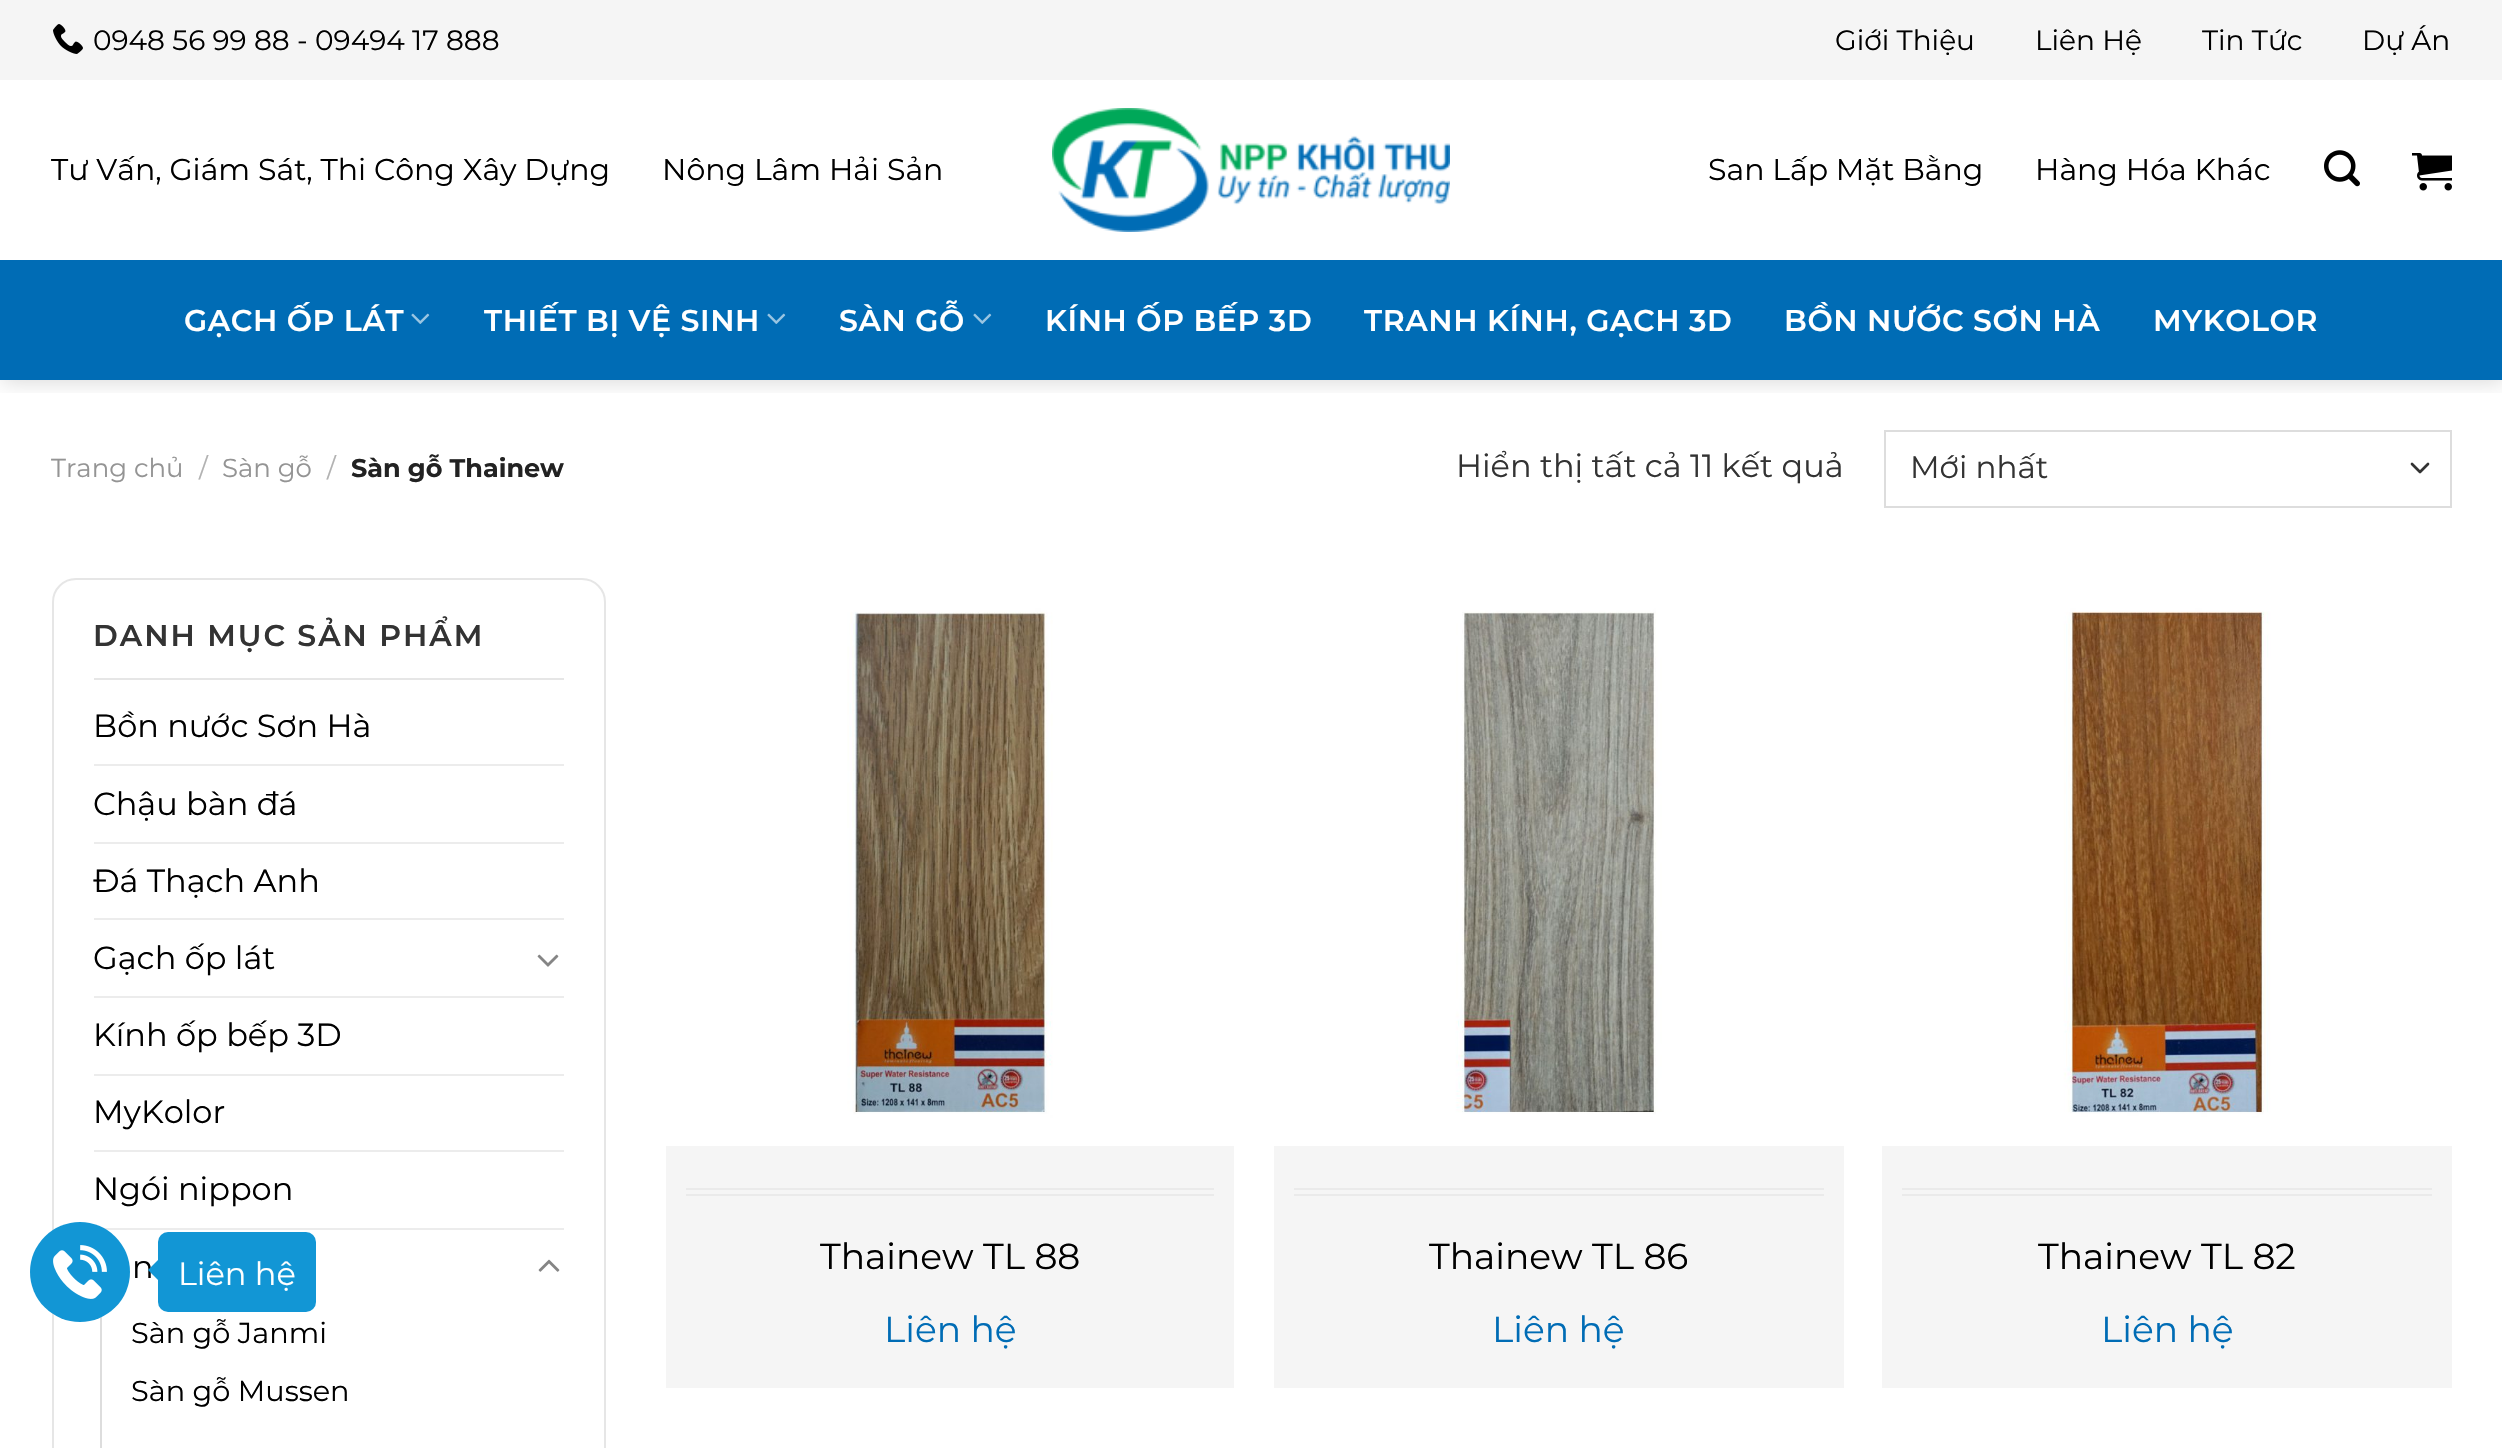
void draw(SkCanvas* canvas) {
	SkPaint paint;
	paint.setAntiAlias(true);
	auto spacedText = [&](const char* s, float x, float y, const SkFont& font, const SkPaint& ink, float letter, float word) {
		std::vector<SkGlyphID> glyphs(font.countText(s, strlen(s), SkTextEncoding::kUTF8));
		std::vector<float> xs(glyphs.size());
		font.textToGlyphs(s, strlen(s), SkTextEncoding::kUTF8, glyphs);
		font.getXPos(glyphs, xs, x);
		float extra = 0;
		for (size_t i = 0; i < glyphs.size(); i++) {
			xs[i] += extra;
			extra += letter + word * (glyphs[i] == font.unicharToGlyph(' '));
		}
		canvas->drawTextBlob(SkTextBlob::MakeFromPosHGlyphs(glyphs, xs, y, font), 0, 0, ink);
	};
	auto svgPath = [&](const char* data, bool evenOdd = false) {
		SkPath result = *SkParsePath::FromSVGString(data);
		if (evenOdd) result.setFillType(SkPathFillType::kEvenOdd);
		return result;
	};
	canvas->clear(0xffffffff);
	canvas->save();
	canvas->clipRect(SkRect::MakeXYWH(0, 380, 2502, 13));
	paint.setColor(0x26000000);
	paint.setMaskFilter(SkMaskFilter::MakeBlur(kNormal_SkBlurStyle, 10));
	canvas->drawRect(SkRect::MakeXYWH(2, 2, 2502, 380), paint);
	paint.setMaskFilter(nullptr);
	canvas->restore();
	paint.setColor(0xfff5f5f5);
	canvas->drawRect(SkRect::MakeXYWH(0, 0, 2502, 80), paint);
	canvas->drawImageRect(SkImages::DeferredFromEncodedData(SkData::MakeFromFileName("img1.png")), SkRect::MakeXYWH(53, 24, 30, 30), SkSamplingOptions());
	SkFont f1(fontMgr->matchFamilyStyle("Montserrat", SkFontStyle::Normal()), 28);
	f1.setSubpixel(true);
	paint.setColor(0xff000000);
	canvas->drawString("0948 56 99 88 - 09494 17 888", 93, 50, f1, paint);
	canvas->drawString("Giới Thiệu", 1835, 50, f1, paint);
	canvas->drawString("Liên Hệ", 2035, 50, f1, paint);
	canvas->drawString("Tin Tức", 2202, 50, f1, paint);
	canvas->drawString("Dự Án", 2362, 50, f1, paint);
	SkFont f2(fontMgr->matchFamilyStyle("Montserrat", SkFontStyle::Normal()), 30);
	f2.setSubpixel(true);
	canvas->drawString("Tư Vấn, Giám Sát, Thi Công Xây Dựng", 51, 180, f2, paint);
	canvas->drawString("Nông Lâm Hải Sản", 662, 180, f2, paint);
	canvas->drawImageRect(SkImages::DeferredFromEncodedData(SkData::MakeFromFileName("img2.png")), SkRect::MakeXYWH(1052, 108, 398, 124), SkSamplingOptions());
	canvas->drawString("San Lấp Mặt Bằng", 1708, 180, f2, paint);
	canvas->drawString("Hàng Hóa Khác", 2035, 180, f2, paint);
	canvas->drawImageRect(SkImages::DeferredFromEncodedData(SkData::MakeFromFileName("img3.png")), SkRect::MakeXYWH(2324, 150, 36, 37), SkSamplingOptions());
	canvas->drawImageRect(SkImages::DeferredFromEncodedData(SkData::MakeFromFileName("img4.png")), SkRect::MakeXYWH(2412, 153, 40, 38), SkSamplingOptions());
	paint.setColor(0xff006cb5);
	canvas->drawRect(SkRect::MakeXYWH(0, 260, 2502, 120), paint);
	SkFont f3(fontMgr->matchFamilyStyle("Montserrat", SkFontStyle(600, SkFontStyle::kNormal_Width, SkFontStyle::kUpright_Slant)), 30);
	f3.setSubpixel(true);
	paint.setColor(0xffffffff);
	spacedText("GẠCH ỐP LÁT", 184, 331, f3, paint, 0.6, 0);
	canvas->drawImageRect(SkImages::DeferredFromEncodedData(SkData::MakeFromFileName("img5.png")), SkRect::MakeXYWH(411, 313, 19, 11), SkSamplingOptions());
	spacedText("THIẾT BỊ VỆ SINH", 484, 331, f3, paint, 0.6, 0);
	canvas->drawImageRect(SkImages::DeferredFromEncodedData(SkData::MakeFromFileName("img5.png")), SkRect::MakeXYWH(767, 313, 19, 11), SkSamplingOptions());
	spacedText("SÀN GỖ", 839, 331, f3, paint, 0.6, 0);
	canvas->drawImageRect(SkImages::DeferredFromEncodedData(SkData::MakeFromFileName("img5.png")), SkRect::MakeXYWH(973, 313, 19, 11), SkSamplingOptions());
	spacedText("KÍNH ỐP BẾP 3D", 1045, 331, f3, paint, 0.6, 0);
	spacedText("TRANH KÍNH, GẠCH 3D", 1364, 331, f3, paint, 0.6, 0);
	spacedText("BỒN NƯỚC SƠN HÀ", 1784, 331, f3, paint, 0.6, 0);
	spacedText("MYKOLOR", 2153, 331, f3, paint, 0.6, 0);
	SkFont f4(fontMgr->matchFamilyStyle("Montserrat", SkFontStyle::Normal()), 26);
	f4.setSubpixel(true);
	paint.setColor(0xff949494);
	canvas->drawString("Trang chủ", 51, 477, f4, paint);
	paint.setColor(0xffb2b2b2);
	canvas->drawString("/", 199, 477, f4, paint);
	paint.setColor(0xff949494);
	canvas->drawString("Sàn gỗ", 222, 477, f4, paint);
	paint.setColor(0xffb2b2b2);
	canvas->drawString("/", 327, 477, f4, paint);
	SkFont f5(fontMgr->matchFamilyStyle("Montserrat", SkFontStyle::Bold()), 25.5);
	f5.setSubpixel(true);
	paint.setColor(0xff222222);
	canvas->drawString("Sàn gỗ Thainew", 351, 477, f5, paint);
	SkFont f6(fontMgr->matchFamilyStyle("Montserrat", SkFontStyle::Normal()), 32);
	f6.setSubpixel(true);
	paint.setColor(0xff333333);
	canvas->drawString("Hiển thị tất cả 11 kết quả", 1456, 477, f6, paint);
	paint.setStroke(true);
	paint.setStrokeWidth(2.7);
	paint.setStrokeCap(SkPaint::kRound_Cap);
	paint.setStrokeJoin(SkPaint::kRound_Join);
	canvas->drawPath(svgPath("M2412 464L2420 472L2428 464"), paint);
	paint.setStrokeWidth(2);
	paint.setStrokeCap(SkPaint::kButt_Cap);
	paint.setStrokeJoin(SkPaint::kMiter_Join);
	paint.setColor(0xffdddddd);
	canvas->drawRect(SkRect::MakeXYWH(1885, 431, 566, 76), paint);
	SkFont f7(fontMgr->matchFamilyStyle("Montserrat", SkFontStyle::Normal()), 31);
	f7.setSubpixel(true);
	paint.setStroke(false);
	paint.setColor(0xff333333);
	canvas->drawString("Mới nhất", 1910, 478, f7, paint);
	paint.setStroke(true);
	paint.setColor(0xffe6e6e6);
	canvas->drawRoundRect(SkRect::MakeXYWH(53, 579, 552, 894), 23, 23, paint);
	paint.setStroke(false);
	canvas->drawRect(SkRect::MakeXYWH(94, 678, 470, 2), paint);
	paint.setColor(0xff333333);
	spacedText("DANH MỤC SẢN PHẨM", 93, 646, f3, paint, 2, 0);
	paint.setColor(0xff000000);
	canvas->drawString("Bồn nước Sơn Hà", 93, 737, f6, paint);
	paint.setColor(0xffececec);
	canvas->drawRect(SkRect::MakeXYWH(94, 764, 470, 2), paint);
	paint.setColor(0xff000000);
	canvas->drawString("Chậu bàn đá", 93, 815, f6, paint);
	paint.setColor(0xffececec);
	canvas->drawRect(SkRect::MakeXYWH(94, 842, 470, 2), paint);
	paint.setColor(0xff000000);
	canvas->drawString("Đá Thạch Anh", 93, 892, f6, paint);
	paint.setColor(0xffececec);
	canvas->drawRect(SkRect::MakeXYWH(94, 918, 470, 2), paint);
	paint.setColor(0xff000000);
	canvas->drawString("Gạch ốp lát", 93, 969, f6, paint);
	canvas->drawImageRect(SkImages::DeferredFromEncodedData(SkData::MakeFromFileName("img6.png")), SkRect::MakeXYWH(537, 954, 22, 13), SkSamplingOptions());
	paint.setColor(0xffececec);
	canvas->drawRect(SkRect::MakeXYWH(94, 996, 470, 2), paint);
	paint.setColor(0xff000000);
	canvas->drawString("Kính ốp bếp 3D", 93, 1046, f6, paint);
	paint.setColor(0xffececec);
	canvas->drawRect(SkRect::MakeXYWH(94, 1074, 470, 2), paint);
	paint.setColor(0xff000000);
	canvas->drawString("MyKolor", 93, 1123, f6, paint);
	paint.setColor(0xffececec);
	canvas->drawRect(SkRect::MakeXYWH(94, 1150, 470, 2), paint);
	paint.setColor(0xff000000);
	canvas->drawString("Ngói nippon", 93, 1200, f6, paint);
	paint.setColor(0xffececec);
	canvas->drawRect(SkRect::MakeXYWH(103, 1228, 461, 2), paint);
	paint.setColor(0xff000000);
	canvas->drawString("n", 132, 1278, f6, paint);
	canvas->drawImageRect(SkImages::DeferredFromEncodedData(SkData::MakeFromFileName("img7.png")), SkRect::MakeXYWH(538, 1259, 22, 13), SkSamplingOptions());
	paint.setColor(0xffdddddd);
	canvas->drawRect(SkRect::MakeXYWH(100, 1316, 2, 132), paint);
	SkFont f8(fontMgr->matchFamilyStyle("Montserrat", SkFontStyle::Normal()), 28.75);
	f8.setSubpixel(true);
	paint.setColor(0xff000000);
	canvas->drawString("Sàn gỗ Janmi", 131, 1343, f8, paint);
	canvas->drawString("Sàn gỗ Mussen", 131, 1401, f8, paint);
	paint.setColor(0xfff5f5f5);
	canvas->drawRect(SkRect::MakeXYWH(666, 1146, 568, 242), paint);
	canvas->drawImageRect(SkImages::DeferredFromEncodedData(SkData::MakeFromFileName("img8.png")), SkRect::MakeXYWH(666, 578, 568, 568), SkSamplingOptions());
	paint.setColor(0xffeaeaea);
	canvas->drawRect(SkRect::MakeXYWH(686, 1188, 528, 2), paint);
	canvas->drawRect(SkRect::MakeXYWH(686, 1194, 528, 2), paint);
	SkFont f9(fontMgr->matchFamilyStyle("Montserrat", SkFontStyle::Normal()), 36);
	f9.setSubpixel(true);
	paint.setColor(0xff000000);
	canvas->drawString("Thainew TL 88", 820, 1269, f9, paint);
	paint.setColor(0xff006cb5);
	canvas->drawString("Liên hệ", 884, 1342, f9, paint);
	paint.setColor(0xfff5f5f5);
	canvas->drawRect(SkRect::MakeXYWH(1274, 1146, 570, 242), paint);
	canvas->drawImageRect(SkImages::DeferredFromEncodedData(SkData::MakeFromFileName("img9.png")), SkRect::MakeXYWH(1274, 578, 570, 568), SkSamplingOptions());
	paint.setColor(0xffeaeaea);
	canvas->drawRect(SkRect::MakeXYWH(1294, 1188, 530, 2), paint);
	canvas->drawRect(SkRect::MakeXYWH(1294, 1194, 530, 2), paint);
	paint.setColor(0xff000000);
	canvas->drawString("Thainew TL 86", 1429, 1269, f9, paint);
	paint.setColor(0xff006cb5);
	canvas->drawString("Liên hệ", 1492, 1342, f9, paint);
	paint.setColor(0xfff5f5f5);
	canvas->drawRect(SkRect::MakeXYWH(1882, 1146, 570, 242), paint);
	canvas->drawImageRect(SkImages::DeferredFromEncodedData(SkData::MakeFromFileName("img10.png")), SkRect::MakeXYWH(1882, 578, 570, 568), SkSamplingOptions());
	paint.setColor(0xffeaeaea);
	canvas->drawRect(SkRect::MakeXYWH(1902, 1188, 530, 2), paint);
	canvas->drawRect(SkRect::MakeXYWH(1902, 1194, 530, 2), paint);
	paint.setColor(0xff000000);
	canvas->drawString("Thainew TL 82", 2038, 1269, f9, paint);
	paint.setColor(0xff006cb5);
	canvas->drawString("Liên hệ", 2101, 1342, f9, paint);
	paint.setColor(0xff1296d5);
	canvas->drawCircle(80, 1272, 50, paint);
	canvas->drawImageRect(SkImages::DeferredFromEncodedData(SkData::MakeFromFileName("img11.png")), SkRect::MakeXYWH(53, 1245, 54, 54), SkSamplingOptions());
	canvas->drawRoundRect(SkRect::MakeXYWH(158, 1232, 158, 80), 10, 10, paint);
	canvas->drawPath(svgPath("M160 1258V1282L148 1270Z"), paint);
	paint.setColor(0xffffffff);
	canvas->drawString("Liên hệ", 178, 1285, f6, paint);
}
